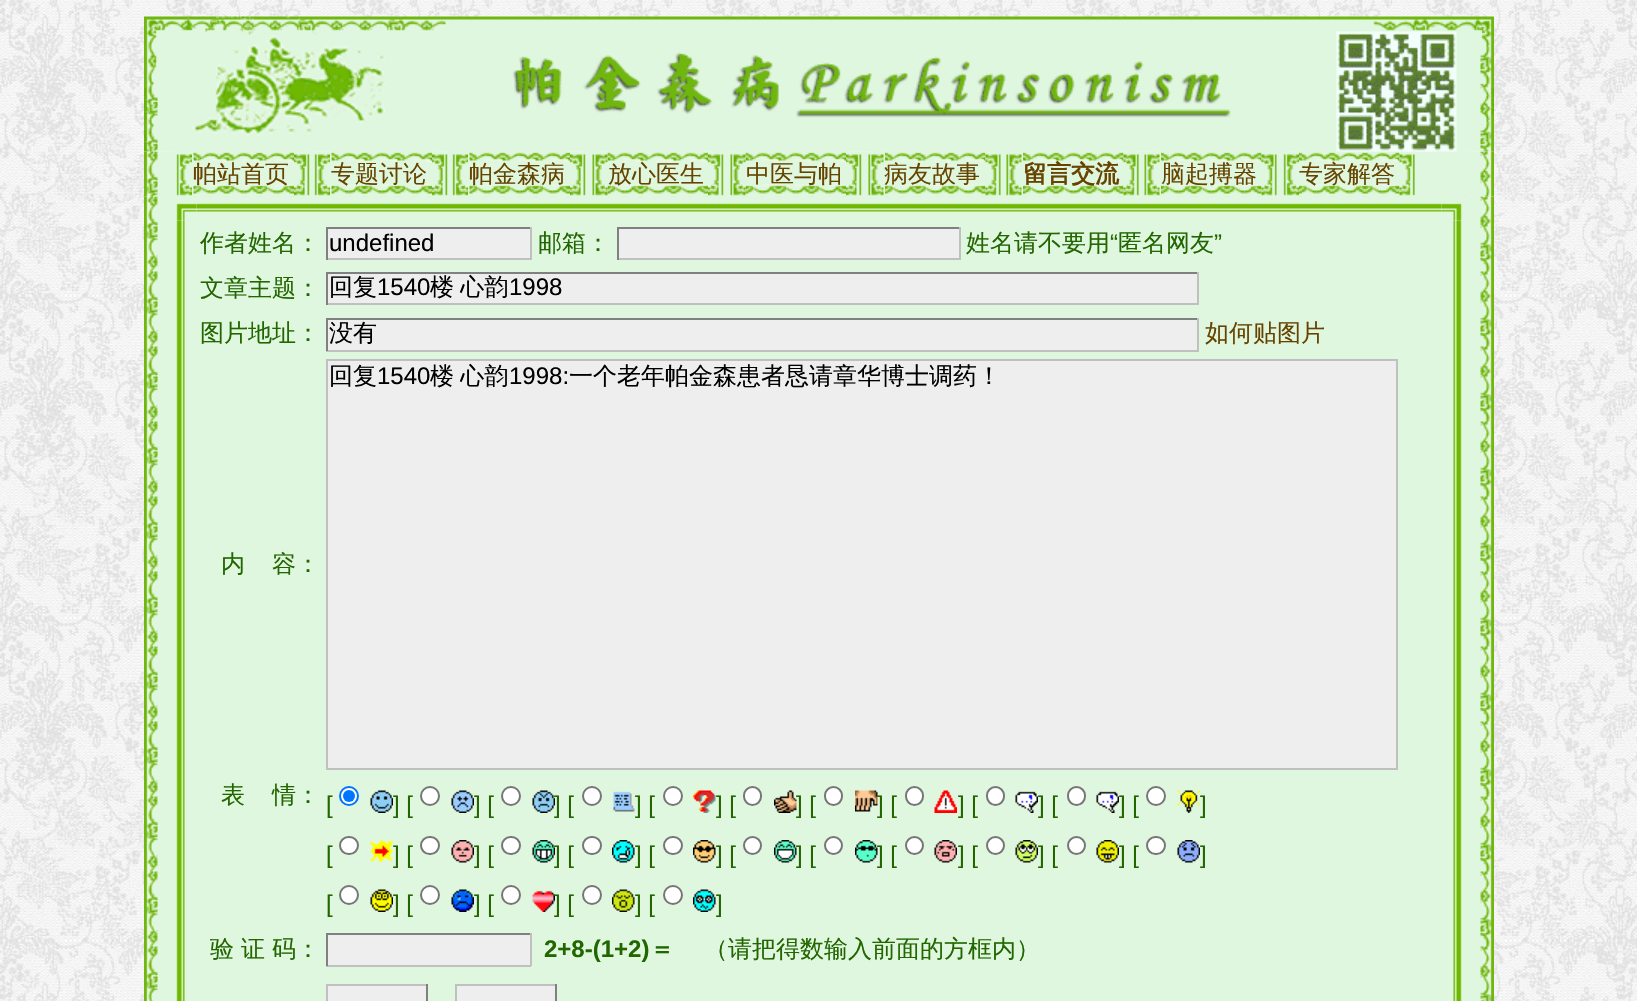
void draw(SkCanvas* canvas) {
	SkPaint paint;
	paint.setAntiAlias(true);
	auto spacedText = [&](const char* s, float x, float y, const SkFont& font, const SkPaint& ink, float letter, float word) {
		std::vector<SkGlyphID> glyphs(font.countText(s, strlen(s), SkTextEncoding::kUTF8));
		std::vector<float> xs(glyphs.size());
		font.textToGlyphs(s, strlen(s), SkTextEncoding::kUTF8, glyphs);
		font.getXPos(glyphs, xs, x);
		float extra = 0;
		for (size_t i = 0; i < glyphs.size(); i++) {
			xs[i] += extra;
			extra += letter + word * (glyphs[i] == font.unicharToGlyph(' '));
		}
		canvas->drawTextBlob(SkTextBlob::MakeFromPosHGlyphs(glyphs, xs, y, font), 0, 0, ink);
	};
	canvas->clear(0xffffffff);
	canvas->drawImageRect(SkImages::DeferredFromEncodedData(SkData::MakeFromFileName("img1.png")), SkRect::MakeXYWH(0, 0, 1637, 1001), SkSamplingOptions());
	canvas->drawImageRect(SkImages::DeferredFromEncodedData(SkData::MakeFromFileName("img3.png")), SkRect::MakeXYWH(144, 151, 1350, 46), SkSamplingOptions());
	canvas->drawImageRect(SkImages::DeferredFromEncodedData(SkData::MakeFromFileName("img5.png")), SkRect::MakeXYWH(193, 151, 101, 46), SkSamplingOptions());
	canvas->drawImageRect(SkImages::DeferredFromEncodedData(SkData::MakeFromFileName("img8.png")), SkRect::MakeXYWH(331, 151, 101, 46), SkSamplingOptions());
	canvas->drawImageRect(SkImages::DeferredFromEncodedData(SkData::MakeFromFileName("img9.png")), SkRect::MakeXYWH(469, 151, 101, 46), SkSamplingOptions());
	canvas->drawImageRect(SkImages::DeferredFromEncodedData(SkData::MakeFromFileName("img11.png")), SkRect::MakeXYWH(607, 151, 101, 46), SkSamplingOptions());
	canvas->drawImageRect(SkImages::DeferredFromEncodedData(SkData::MakeFromFileName("img12.png")), SkRect::MakeXYWH(745, 151, 101, 46), SkSamplingOptions());
	canvas->drawImageRect(SkImages::DeferredFromEncodedData(SkData::MakeFromFileName("img15.png")), SkRect::MakeXYWH(885, 151, 101, 46), SkSamplingOptions());
	canvas->drawImageRect(SkImages::DeferredFromEncodedData(SkData::MakeFromFileName("img17.png")), SkRect::MakeXYWH(1023, 151, 101, 46), SkSamplingOptions());
	canvas->drawImageRect(SkImages::DeferredFromEncodedData(SkData::MakeFromFileName("img20.png")), SkRect::MakeXYWH(1161, 151, 101, 46), SkSamplingOptions());
	canvas->drawImageRect(SkImages::DeferredFromEncodedData(SkData::MakeFromFileName("img21.png")), SkRect::MakeXYWH(1299, 151, 101, 46), SkSamplingOptions());
	canvas->drawImageRect(SkImages::DeferredFromEncodedData(SkData::MakeFromFileName("img2.png")), SkRect::MakeXYWH(144, 16, 1350, 136), SkSamplingOptions());
	canvas->drawImageRect(SkImages::DeferredFromEncodedData(SkData::MakeFromFileName("img4.png")), SkRect::MakeXYWH(176, 154, 16, 42), SkSamplingOptions());
	SkFont f1(fontMgr->matchFamilyStyle("WenQuanYi Zen Hei", SkFontStyle(500, SkFontStyle::kNormal_Width, SkFontStyle::kUpright_Slant)), 24);
	f1.setSubpixel(true);
	paint.setColor(0xff664400);
	canvas->drawString("帕站首页", 193, 182, f1, paint);
	canvas->drawImageRect(SkImages::DeferredFromEncodedData(SkData::MakeFromFileName("img6.png")), SkRect::MakeXYWH(294, 154, 16, 42), SkSamplingOptions());
	canvas->drawImageRect(SkImages::DeferredFromEncodedData(SkData::MakeFromFileName("img7.png")), SkRect::MakeXYWH(314, 154, 16, 42), SkSamplingOptions());
	canvas->drawString("专题讨论", 331, 182, f1, paint);
	canvas->drawImageRect(SkImages::DeferredFromEncodedData(SkData::MakeFromFileName("img6.png")), SkRect::MakeXYWH(432, 154, 16, 42), SkSamplingOptions());
	canvas->drawImageRect(SkImages::DeferredFromEncodedData(SkData::MakeFromFileName("img7.png")), SkRect::MakeXYWH(452, 154, 16, 42), SkSamplingOptions());
	canvas->drawString("帕金森病", 469, 182, f1, paint);
	canvas->drawImageRect(SkImages::DeferredFromEncodedData(SkData::MakeFromFileName("img6.png")), SkRect::MakeXYWH(570, 154, 16, 42), SkSamplingOptions());
	canvas->drawImageRect(SkImages::DeferredFromEncodedData(SkData::MakeFromFileName("img10.png")), SkRect::MakeXYWH(592, 153, 16, 43), SkSamplingOptions());
	canvas->drawString("放心医生", 608, 182, f1, paint);
	canvas->drawImageRect(SkImages::DeferredFromEncodedData(SkData::MakeFromFileName("img6.png")), SkRect::MakeXYWH(708, 154, 16, 42), SkSamplingOptions());
	canvas->drawImageRect(SkImages::DeferredFromEncodedData(SkData::MakeFromFileName("img10.png")), SkRect::MakeXYWH(730, 153, 16, 43), SkSamplingOptions());
	canvas->drawString("中医与帕", 746, 182, f1, paint);
	canvas->drawImageRect(SkImages::DeferredFromEncodedData(SkData::MakeFromFileName("img13.png")), SkRect::MakeXYWH(846, 154, 16, 42), SkSamplingOptions());
	canvas->drawImageRect(SkImages::DeferredFromEncodedData(SkData::MakeFromFileName("img14.png")), SkRect::MakeXYWH(868, 154, 16, 42), SkSamplingOptions());
	canvas->drawString("病友故事", 884, 182, f1, paint);
	canvas->drawImageRect(SkImages::DeferredFromEncodedData(SkData::MakeFromFileName("img16.png")), SkRect::MakeXYWH(985, 153, 16, 43), SkSamplingOptions());
	canvas->drawImageRect(SkImages::DeferredFromEncodedData(SkData::MakeFromFileName("img14.png")), SkRect::MakeXYWH(1006, 154, 16, 42), SkSamplingOptions());
	SkFont f2(fontMgr->matchFamilyStyle("WenQuanYi Zen Hei", SkFontStyle::Bold()), 24);
	f2.setSubpixel(true);
	canvas->drawString("留言交流", 1023, 182, f2, paint);
	canvas->drawImageRect(SkImages::DeferredFromEncodedData(SkData::MakeFromFileName("img18.png")), SkRect::MakeXYWH(1123, 153, 16, 43), SkSamplingOptions());
	canvas->drawImageRect(SkImages::DeferredFromEncodedData(SkData::MakeFromFileName("img19.png")), SkRect::MakeXYWH(1144, 154, 16, 42), SkSamplingOptions());
	canvas->drawString("脑起搏器", 1161, 182, f1, paint);
	canvas->drawImageRect(SkImages::DeferredFromEncodedData(SkData::MakeFromFileName("img16.png")), SkRect::MakeXYWH(1261, 153, 16, 43), SkSamplingOptions());
	canvas->drawImageRect(SkImages::DeferredFromEncodedData(SkData::MakeFromFileName("img4.png")), SkRect::MakeXYWH(1283, 154, 16, 42), SkSamplingOptions());
	canvas->drawString("专家解答", 1299, 182, f1, paint);
	canvas->drawImageRect(SkImages::DeferredFromEncodedData(SkData::MakeFromFileName("img18.png")), SkRect::MakeXYWH(1399, 153, 16, 43), SkSamplingOptions());
	canvas->drawImageRect(SkImages::DeferredFromEncodedData(SkData::MakeFromFileName("img22.png")), SkRect::MakeXYWH(144, 196, 1350, 805), SkSamplingOptions());
	canvas->drawImageRect(SkImages::DeferredFromEncodedData(SkData::MakeFromFileName("img24.png")), SkRect::MakeXYWH(196, 196, 1246, 16), SkSamplingOptions());
	canvas->drawImageRect(SkImages::DeferredFromEncodedData(SkData::MakeFromFileName("img26.png")), SkRect::MakeXYWH(176, 220, 9, 781), SkSamplingOptions());
	canvas->drawImageRect(SkImages::DeferredFromEncodedData(SkData::MakeFromFileName("img23.png")), SkRect::MakeXYWH(176, 196, 21, 25), SkSamplingOptions());
	canvas->drawImageRect(SkImages::DeferredFromEncodedData(SkData::MakeFromFileName("img53.png")), SkRect::MakeXYWH(1453, 220, 9, 781), SkSamplingOptions());
	canvas->drawImageRect(SkImages::DeferredFromEncodedData(SkData::MakeFromFileName("img25.png")), SkRect::MakeXYWH(1441, 203, 21, 18), SkSamplingOptions());
	paint.setColor(0xff226600);
	canvas->drawString("作者姓名：", 200, 251, f1, paint);
	paint.setColor(0xffeeeeee);
	canvas->drawRect(SkRect::MakeXYWH(328, 229, 202, 29), paint);
	paint.setColor(0xff808080);
	canvas->drawRect(SkRect::MakeXYWH(326, 227, 205, 2), paint);
	paint.setColor(0xffc0c0c0);
	canvas->drawRect(SkRect::MakeXYWH(530, 227, 2, 33), paint);
	canvas->drawRect(SkRect::MakeXYWH(326, 258, 205, 2), paint);
	paint.setColor(0xff808080);
	canvas->drawRect(SkRect::MakeXYWH(326, 227, 2, 33), paint);
	SkFont f3(fontMgr->matchFamilyStyle("Liberation Sans", SkFontStyle::Normal()), 24);
	f3.setSubpixel(true);
	paint.setColor(0xff000000);
	canvas->drawString("undefined", 329, 251, f3, paint);
	paint.setColor(0xff226600);
	canvas->drawString("邮箱：", 538, 251, f1, paint);
	paint.setColor(0xffeeeeee);
	canvas->drawRect(SkRect::MakeXYWH(619, 229, 340, 29), paint);
	paint.setColor(0xff808080);
	canvas->drawRect(SkRect::MakeXYWH(617, 227, 343, 2), paint);
	paint.setColor(0xffc0c0c0);
	canvas->drawRect(SkRect::MakeXYWH(959, 227, 2, 33), paint);
	canvas->drawRect(SkRect::MakeXYWH(617, 258, 343, 2), paint);
	paint.setColor(0xff808080);
	canvas->drawRect(SkRect::MakeXYWH(617, 227, 2, 33), paint);
	paint.setColor(0xff226600);
	canvas->drawString("姓名请不要用", 966, 251, f1, paint);
	canvas->drawString("“", 1110, 251, f3, paint);
	canvas->drawString("匿名网友", 1118, 251, f1, paint);
	canvas->drawString("”", 1214, 251, f3, paint);
	canvas->drawString("文章主题：", 200, 296, f1, paint);
	paint.setColor(0xffeeeeee);
	canvas->drawRect(SkRect::MakeXYWH(328, 274, 869, 29), paint);
	paint.setColor(0xff808080);
	canvas->drawRect(SkRect::MakeXYWH(326, 272, 873, 2), paint);
	paint.setColor(0xffc0c0c0);
	canvas->drawRect(SkRect::MakeXYWH(1197, 272, 2, 33), paint);
	canvas->drawRect(SkRect::MakeXYWH(326, 303, 873, 2), paint);
	paint.setColor(0xff808080);
	canvas->drawRect(SkRect::MakeXYWH(326, 272, 2, 33), paint);
	paint.setColor(0xff000000);
	canvas->drawString("回复", 329, 295, f1, paint);
	canvas->drawString("1540", 377, 295, f3, paint);
	spacedText("楼 心韵", 430, 295, f1, paint, 0, -1);
	canvas->drawString("1998", 509, 295, f3, paint);
	paint.setColor(0xff226600);
	canvas->drawString("图片地址：", 200, 341, f1, paint);
	paint.setColor(0xffeeeeee);
	canvas->drawRect(SkRect::MakeXYWH(328, 320, 869, 30), paint);
	paint.setColor(0xff808080);
	canvas->drawRect(SkRect::MakeXYWH(326, 318, 873, 2), paint);
	paint.setColor(0xffc0c0c0);
	canvas->drawRect(SkRect::MakeXYWH(1197, 318, 2, 33), paint);
	canvas->drawRect(SkRect::MakeXYWH(326, 350, 873, 2), paint);
	paint.setColor(0xff808080);
	canvas->drawRect(SkRect::MakeXYWH(326, 318, 2, 33), paint);
	paint.setColor(0xff000000);
	canvas->drawString("没有", 329, 341, f1, paint);
	paint.setColor(0xff664400);
	canvas->drawString("如何贴图片", 1205, 341, f1, paint);
	paint.setColor(0xffeeeeee);
	canvas->drawRect(SkRect::MakeXYWH(327, 360, 1070, 409), paint);
	paint.setStroke(true);
	paint.setStrokeWidth(2);
	paint.setColor(0xffc0c0c0);
	canvas->drawRect(SkRect::MakeXYWH(327, 360, 1070, 409), paint);
	paint.setStroke(false);
	paint.setColor(0xff000000);
	canvas->drawString("回复", 329, 384, f1, paint);
	canvas->drawString("1540", 377, 384, f3, paint);
	spacedText("楼 心韵", 430, 384, f1, paint, 0, -1);
	canvas->drawString("1998:", 509, 384, f3, paint);
	canvas->drawString("一个老年帕金森患者恳请章华博士调药！", 569, 384, f1, paint);
	paint.setColor(0xff226600);
	canvas->drawString("内", 221, 572, f1, paint);
	canvas->drawString("容：", 272, 572, f1, paint);
	canvas->drawString("表", 221, 803, f1, paint);
	canvas->drawString("情：", 272, 803, f1, paint);
	canvas->drawString("[", 326, 813, f3, paint);
	paint.setColor(0xffffffff);
	canvas->drawCircle(349, 796, 9, paint);
	paint.setStroke(true);
	paint.setColor(0xff0075ff);
	canvas->drawCircle(349, 796, 9, paint);
	paint.setStroke(false);
	canvas->drawCircle(349, 796, 6, paint);
	canvas->drawImageRect(SkImages::DeferredFromEncodedData(SkData::MakeFromFileName("img27.png")), SkRect::MakeXYWH(370, 790, 23, 23), SkSamplingOptions());
	paint.setColor(0xff226600);
	canvas->drawString("] [", 393, 813, f3, paint);
	paint.setColor(0xffffffff);
	canvas->drawCircle(430, 796, 9, paint);
	paint.setStroke(true);
	paint.setColor(0xff767676);
	canvas->drawCircle(430, 796, 9, paint);
	canvas->drawImageRect(SkImages::DeferredFromEncodedData(SkData::MakeFromFileName("img28.png")), SkRect::MakeXYWH(451, 790, 23, 23), SkSamplingOptions());
	paint.setStroke(false);
	paint.setColor(0xff226600);
	canvas->drawString("] [", 474, 813, f3, paint);
	paint.setColor(0xffffffff);
	canvas->drawCircle(511, 796, 9, paint);
	paint.setStroke(true);
	paint.setColor(0xff767676);
	canvas->drawCircle(511, 796, 9, paint);
	canvas->drawImageRect(SkImages::DeferredFromEncodedData(SkData::MakeFromFileName("img29.png")), SkRect::MakeXYWH(532, 790, 23, 23), SkSamplingOptions());
	paint.setStroke(false);
	paint.setColor(0xff226600);
	canvas->drawString("] [", 554, 813, f3, paint);
	paint.setColor(0xffffffff);
	canvas->drawCircle(592, 796, 9, paint);
	paint.setStroke(true);
	paint.setColor(0xff767676);
	canvas->drawCircle(592, 796, 9, paint);
	canvas->drawImageRect(SkImages::DeferredFromEncodedData(SkData::MakeFromFileName("img30.png")), SkRect::MakeXYWH(613, 791, 22, 21), SkSamplingOptions());
	paint.setStroke(false);
	paint.setColor(0xff226600);
	canvas->drawString("] [", 635, 813, f3, paint);
	paint.setColor(0xffffffff);
	canvas->drawCircle(673, 796, 9, paint);
	paint.setStroke(true);
	paint.setColor(0xff767676);
	canvas->drawCircle(673, 796, 9, paint);
	canvas->drawImageRect(SkImages::DeferredFromEncodedData(SkData::MakeFromFileName("img31.png")), SkRect::MakeXYWH(693, 790, 23, 23), SkSamplingOptions());
	paint.setStroke(false);
	paint.setColor(0xff226600);
	canvas->drawString("] [", 716, 813, f3, paint);
	paint.setColor(0xffffffff);
	canvas->drawRoundRect(SkRect::MakeXYWH(744, 787, 17, 18), 8.5, 8.5, paint);
	paint.setStroke(true);
	paint.setColor(0xff767676);
	canvas->drawRoundRect(SkRect::MakeXYWH(744, 787, 17, 18), 8.5, 8.5, paint);
	canvas->drawImageRect(SkImages::DeferredFromEncodedData(SkData::MakeFromFileName("img32.png")), SkRect::MakeXYWH(774, 790, 23, 23), SkSamplingOptions());
	paint.setStroke(false);
	paint.setColor(0xff226600);
	canvas->drawString("] [", 796, 813, f3, paint);
	paint.setColor(0xffffffff);
	canvas->drawRoundRect(SkRect::MakeXYWH(825, 787, 17, 18), 8.5, 8.5, paint);
	paint.setStroke(true);
	paint.setColor(0xff767676);
	canvas->drawRoundRect(SkRect::MakeXYWH(825, 787, 17, 18), 8.5, 8.5, paint);
	canvas->drawImageRect(SkImages::DeferredFromEncodedData(SkData::MakeFromFileName("img33.png")), SkRect::MakeXYWH(855, 790, 23, 22), SkSamplingOptions());
	paint.setStroke(false);
	paint.setColor(0xff226600);
	canvas->drawString("] [", 877, 813, f3, paint);
	paint.setColor(0xffffffff);
	canvas->drawRoundRect(SkRect::MakeXYWH(906, 787, 17, 18), 8.5, 8.5, paint);
	paint.setStroke(true);
	paint.setColor(0xff767676);
	canvas->drawRoundRect(SkRect::MakeXYWH(906, 787, 17, 18), 8.5, 8.5, paint);
	canvas->drawImageRect(SkImages::DeferredFromEncodedData(SkData::MakeFromFileName("img34.png")), SkRect::MakeXYWH(934, 790, 23, 23), SkSamplingOptions());
	paint.setStroke(false);
	paint.setColor(0xff226600);
	canvas->drawString("] [", 958, 813, f3, paint);
	paint.setColor(0xffffffff);
	canvas->drawRoundRect(SkRect::MakeXYWH(987, 787, 17, 18), 8.5, 8.5, paint);
	paint.setStroke(true);
	paint.setColor(0xff767676);
	canvas->drawRoundRect(SkRect::MakeXYWH(987, 787, 17, 18), 8.5, 8.5, paint);
	canvas->drawImageRect(SkImages::DeferredFromEncodedData(SkData::MakeFromFileName("img35.png")), SkRect::MakeXYWH(1015, 791, 23, 22), SkSamplingOptions());
	paint.setStroke(false);
	paint.setColor(0xff226600);
	canvas->drawString("] [", 1038, 813, f3, paint);
	paint.setColor(0xffffffff);
	canvas->drawRoundRect(SkRect::MakeXYWH(1068, 787, 17, 18), 8.5, 8.5, paint);
	paint.setStroke(true);
	paint.setColor(0xff767676);
	canvas->drawRoundRect(SkRect::MakeXYWH(1068, 787, 17, 18), 8.5, 8.5, paint);
	canvas->drawImageRect(SkImages::DeferredFromEncodedData(SkData::MakeFromFileName("img35.png")), SkRect::MakeXYWH(1096, 791, 23, 22), SkSamplingOptions());
	paint.setStroke(false);
	paint.setColor(0xff226600);
	canvas->drawString("] [", 1119, 813, f3, paint);
	paint.setColor(0xffffffff);
	canvas->drawCircle(1156, 796, 9, paint);
	paint.setStroke(true);
	paint.setColor(0xff767676);
	canvas->drawCircle(1156, 796, 9, paint);
	canvas->drawImageRect(SkImages::DeferredFromEncodedData(SkData::MakeFromFileName("img36.png")), SkRect::MakeXYWH(1177, 790, 23, 23), SkSamplingOptions());
	paint.setStroke(false);
	paint.setColor(0xff226600);
	canvas->drawString("]", 1200, 813, f3, paint);
	canvas->drawString("[", 326, 863, f3, paint);
	paint.setColor(0xffffffff);
	canvas->drawRoundRect(SkRect::MakeXYWH(340, 837, 18, 17), 8.5, 8.5, paint);
	paint.setStroke(true);
	paint.setColor(0xff767676);
	canvas->drawRoundRect(SkRect::MakeXYWH(340, 837, 18, 17), 8.5, 8.5, paint);
	canvas->drawImageRect(SkImages::DeferredFromEncodedData(SkData::MakeFromFileName("img37.png")), SkRect::MakeXYWH(370, 840, 23, 23), SkSamplingOptions());
	paint.setStroke(false);
	paint.setColor(0xff226600);
	canvas->drawString("] [", 393, 863, f3, paint);
	paint.setColor(0xffffffff);
	canvas->drawRoundRect(SkRect::MakeXYWH(421, 837, 18, 17), 8.5, 8.5, paint);
	paint.setStroke(true);
	paint.setColor(0xff767676);
	canvas->drawRoundRect(SkRect::MakeXYWH(421, 837, 18, 17), 8.5, 8.5, paint);
	canvas->drawImageRect(SkImages::DeferredFromEncodedData(SkData::MakeFromFileName("img38.png")), SkRect::MakeXYWH(451, 840, 23, 23), SkSamplingOptions());
	paint.setStroke(false);
	paint.setColor(0xff226600);
	canvas->drawString("] [", 474, 863, f3, paint);
	paint.setColor(0xffffffff);
	canvas->drawRoundRect(SkRect::MakeXYWH(502, 837, 18, 17), 8.5, 8.5, paint);
	paint.setStroke(true);
	paint.setColor(0xff767676);
	canvas->drawRoundRect(SkRect::MakeXYWH(502, 837, 18, 17), 8.5, 8.5, paint);
	canvas->drawImageRect(SkImages::DeferredFromEncodedData(SkData::MakeFromFileName("img39.png")), SkRect::MakeXYWH(532, 840, 23, 23), SkSamplingOptions());
	paint.setStroke(false);
	paint.setColor(0xff226600);
	canvas->drawString("] [", 554, 863, f3, paint);
	paint.setColor(0xffffffff);
	canvas->drawRoundRect(SkRect::MakeXYWH(583, 837, 18, 17), 8.5, 8.5, paint);
	paint.setStroke(true);
	paint.setColor(0xff767676);
	canvas->drawRoundRect(SkRect::MakeXYWH(583, 837, 18, 17), 8.5, 8.5, paint);
	canvas->drawImageRect(SkImages::DeferredFromEncodedData(SkData::MakeFromFileName("img40.png")), SkRect::MakeXYWH(612, 840, 23, 23), SkSamplingOptions());
	paint.setStroke(false);
	paint.setColor(0xff226600);
	canvas->drawString("] [", 635, 863, f3, paint);
	paint.setColor(0xffffffff);
	canvas->drawRoundRect(SkRect::MakeXYWH(664, 837, 18, 17), 8.5, 8.5, paint);
	paint.setStroke(true);
	paint.setColor(0xff767676);
	canvas->drawRoundRect(SkRect::MakeXYWH(664, 837, 18, 17), 8.5, 8.5, paint);
	canvas->drawImageRect(SkImages::DeferredFromEncodedData(SkData::MakeFromFileName("img41.png")), SkRect::MakeXYWH(693, 840, 23, 23), SkSamplingOptions());
	paint.setStroke(false);
	paint.setColor(0xff226600);
	canvas->drawString("] [", 716, 863, f3, paint);
	paint.setColor(0xffffffff);
	canvas->drawCircle(752.5, 845.5, 8.5, paint);
	paint.setStroke(true);
	paint.setColor(0xff767676);
	canvas->drawCircle(752.5, 845.5, 8.5, paint);
	canvas->drawImageRect(SkImages::DeferredFromEncodedData(SkData::MakeFromFileName("img42.png")), SkRect::MakeXYWH(774, 840, 23, 23), SkSamplingOptions());
	paint.setStroke(false);
	paint.setColor(0xff226600);
	canvas->drawString("] [", 796, 863, f3, paint);
	paint.setColor(0xffffffff);
	canvas->drawCircle(833.5, 845.5, 8.5, paint);
	paint.setStroke(true);
	paint.setColor(0xff767676);
	canvas->drawCircle(833.5, 845.5, 8.5, paint);
	canvas->drawImageRect(SkImages::DeferredFromEncodedData(SkData::MakeFromFileName("img43.png")), SkRect::MakeXYWH(855, 840, 23, 23), SkSamplingOptions());
	paint.setStroke(false);
	paint.setColor(0xff226600);
	canvas->drawString("] [", 877, 863, f3, paint);
	paint.setColor(0xffffffff);
	canvas->drawCircle(914.5, 845.5, 8.5, paint);
	paint.setStroke(true);
	paint.setColor(0xff767676);
	canvas->drawCircle(914.5, 845.5, 8.5, paint);
	canvas->drawImageRect(SkImages::DeferredFromEncodedData(SkData::MakeFromFileName("img44.png")), SkRect::MakeXYWH(934, 840, 23, 23), SkSamplingOptions());
	paint.setStroke(false);
	paint.setColor(0xff226600);
	canvas->drawString("] [", 958, 863, f3, paint);
	paint.setColor(0xffffffff);
	canvas->drawCircle(995.5, 845.5, 8.5, paint);
	paint.setStroke(true);
	paint.setColor(0xff767676);
	canvas->drawCircle(995.5, 845.5, 8.5, paint);
	canvas->drawImageRect(SkImages::DeferredFromEncodedData(SkData::MakeFromFileName("img45.png")), SkRect::MakeXYWH(1015, 840, 23, 23), SkSamplingOptions());
	paint.setStroke(false);
	paint.setColor(0xff226600);
	canvas->drawString("] [", 1038, 863, f3, paint);
	paint.setColor(0xffffffff);
	canvas->drawCircle(1076.5, 845.5, 8.5, paint);
	paint.setStroke(true);
	paint.setColor(0xff767676);
	canvas->drawCircle(1076.5, 845.5, 8.5, paint);
	canvas->drawImageRect(SkImages::DeferredFromEncodedData(SkData::MakeFromFileName("img46.png")), SkRect::MakeXYWH(1096, 840, 23, 23), SkSamplingOptions());
	paint.setStroke(false);
	paint.setColor(0xff226600);
	canvas->drawString("] [", 1119, 863, f3, paint);
	paint.setColor(0xffffffff);
	canvas->drawRoundRect(SkRect::MakeXYWH(1147, 837, 18, 17), 8.5, 8.5, paint);
	paint.setStroke(true);
	paint.setColor(0xff767676);
	canvas->drawRoundRect(SkRect::MakeXYWH(1147, 837, 18, 17), 8.5, 8.5, paint);
	canvas->drawImageRect(SkImages::DeferredFromEncodedData(SkData::MakeFromFileName("img47.png")), SkRect::MakeXYWH(1177, 840, 23, 23), SkSamplingOptions());
	paint.setStroke(false);
	paint.setColor(0xff226600);
	canvas->drawString("]", 1200, 863, f3, paint);
	canvas->drawString("[", 326, 912, f3, paint);
	paint.setColor(0xffffffff);
	canvas->drawCircle(349, 895, 9, paint);
	paint.setStroke(true);
	paint.setColor(0xff767676);
	canvas->drawCircle(349, 895, 9, paint);
	canvas->drawImageRect(SkImages::DeferredFromEncodedData(SkData::MakeFromFileName("img48.png")), SkRect::MakeXYWH(370, 889, 23, 23), SkSamplingOptions());
	paint.setStroke(false);
	paint.setColor(0xff226600);
	canvas->drawString("] [", 393, 912, f3, paint);
	paint.setColor(0xffffffff);
	canvas->drawCircle(430, 895, 9, paint);
	paint.setStroke(true);
	paint.setColor(0xff767676);
	canvas->drawCircle(430, 895, 9, paint);
	canvas->drawImageRect(SkImages::DeferredFromEncodedData(SkData::MakeFromFileName("img49.png")), SkRect::MakeXYWH(451, 889, 23, 23), SkSamplingOptions());
	paint.setStroke(false);
	paint.setColor(0xff226600);
	canvas->drawString("] [", 474, 912, f3, paint);
	paint.setColor(0xffffffff);
	canvas->drawCircle(511, 895, 9, paint);
	paint.setStroke(true);
	paint.setColor(0xff767676);
	canvas->drawCircle(511, 895, 9, paint);
	canvas->drawImageRect(SkImages::DeferredFromEncodedData(SkData::MakeFromFileName("img50.png")), SkRect::MakeXYWH(532, 890, 23, 22), SkSamplingOptions());
	paint.setStroke(false);
	paint.setColor(0xff226600);
	canvas->drawString("] [", 554, 912, f3, paint);
	paint.setColor(0xffffffff);
	canvas->drawCircle(592, 895, 9, paint);
	paint.setStroke(true);
	paint.setColor(0xff767676);
	canvas->drawCircle(592, 895, 9, paint);
	canvas->drawImageRect(SkImages::DeferredFromEncodedData(SkData::MakeFromFileName("img51.png")), SkRect::MakeXYWH(612, 889, 23, 23), SkSamplingOptions());
	paint.setStroke(false);
	paint.setColor(0xff226600);
	canvas->drawString("] [", 635, 912, f3, paint);
	paint.setColor(0xffffffff);
	canvas->drawCircle(673, 895, 9, paint);
	paint.setStroke(true);
	paint.setColor(0xff767676);
	canvas->drawCircle(673, 895, 9, paint);
	canvas->drawImageRect(SkImages::DeferredFromEncodedData(SkData::MakeFromFileName("img52.png")), SkRect::MakeXYWH(693, 889, 23, 23), SkSamplingOptions());
	paint.setStroke(false);
	paint.setColor(0xff226600);
	canvas->drawString("]", 716, 912, f3, paint);
	canvas->drawString("验", 210, 957, f1, paint);
	canvas->drawString("证", 241, 957, f1, paint);
	canvas->drawString("码：", 272, 957, f1, paint);
	paint.setColor(0xffeeeeee);
	canvas->drawRect(SkRect::MakeXYWH(328, 935, 202, 30), paint);
	paint.setColor(0xff808080);
	canvas->drawRect(SkRect::MakeXYWH(326, 933, 205, 2), paint);
	paint.setColor(0xffc0c0c0);
	canvas->drawRect(SkRect::MakeXYWH(530, 933, 2, 33), paint);
	canvas->drawRect(SkRect::MakeXYWH(326, 965, 205, 2), paint);
	paint.setColor(0xff808080);
	canvas->drawRect(SkRect::MakeXYWH(326, 933, 2, 33), paint);
	SkFont f4(fontMgr->matchFamilyStyle("Liberation Sans", SkFontStyle::Bold()), 24);
	f4.setSubpixel(true);
	paint.setColor(0xff226600);
	canvas->drawString("2+8-(1+2)", 544, 957, f4, paint);
	canvas->drawString("＝", 650, 957, f2, paint);
	canvas->drawString("（请把得数输入前面的方框内）", 704, 957, f1, paint);
	paint.setColor(0xffeeeeee);
	canvas->drawRect(SkRect::MakeXYWH(328, 986, 98, 15), paint);
	paint.setColor(0xffc0c0c0);
	canvas->drawRect(SkRect::MakeXYWH(326, 984, 102, 2), paint);
	paint.setColor(0xff808080);
	canvas->drawRect(SkRect::MakeXYWH(426, 984, 2, 17), paint);
	paint.setColor(0xffc0c0c0);
	canvas->drawRect(SkRect::MakeXYWH(326, 984, 2, 17), paint);
	paint.setColor(0xffeeeeee);
	canvas->drawRect(SkRect::MakeXYWH(457, 986, 98, 15), paint);
	paint.setColor(0xffc0c0c0);
	canvas->drawRect(SkRect::MakeXYWH(455, 984, 102, 2), paint);
	paint.setColor(0xff808080);
	canvas->drawRect(SkRect::MakeXYWH(555, 984, 2, 17), paint);
	paint.setColor(0xffc0c0c0);
	canvas->drawRect(SkRect::MakeXYWH(455, 984, 2, 17), paint);
}
